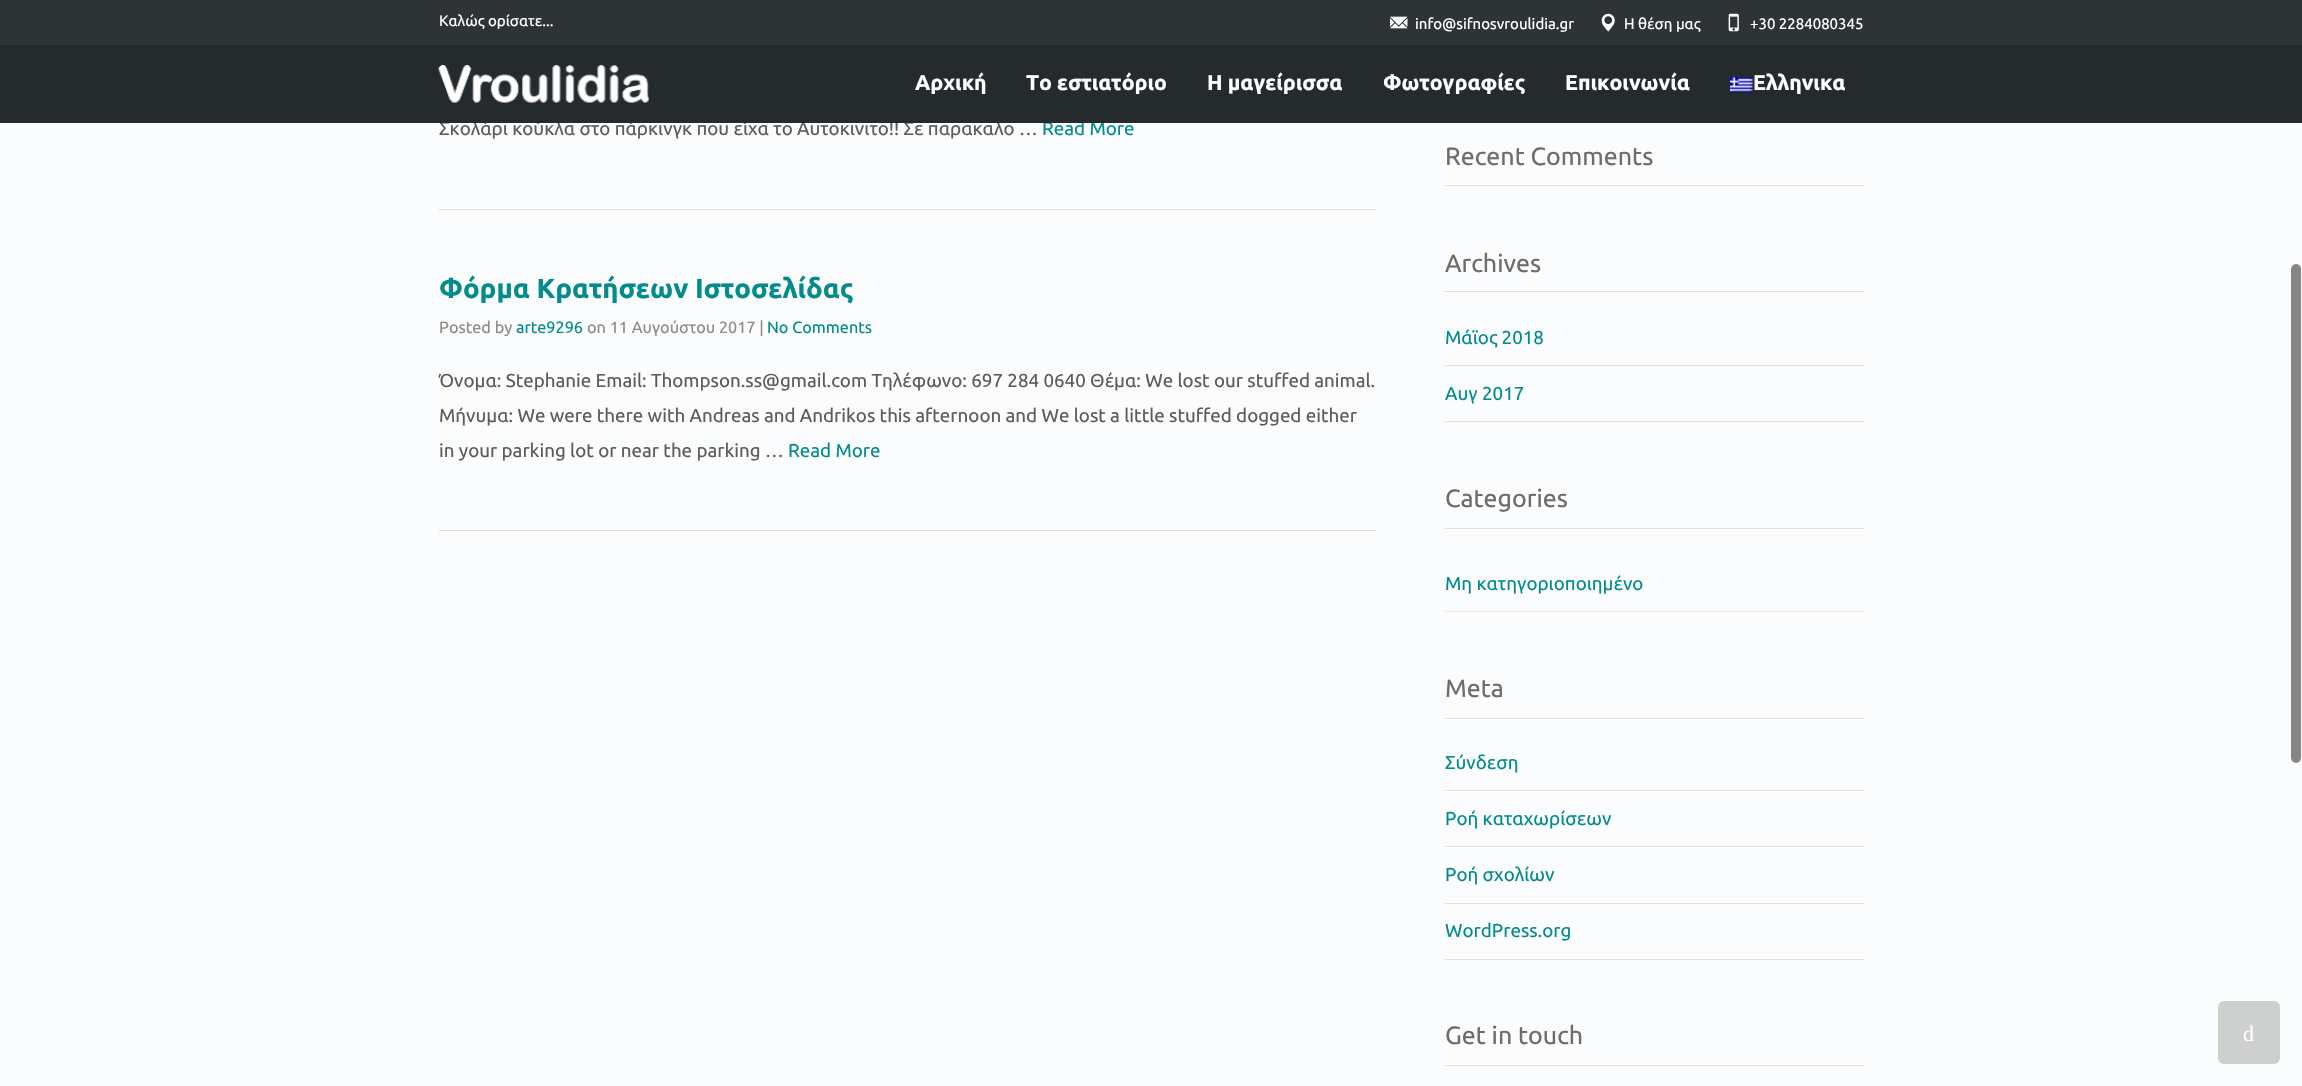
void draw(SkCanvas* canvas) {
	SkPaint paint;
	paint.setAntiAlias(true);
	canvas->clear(0xfffbfcfd);
	SkFont f1(fontMgr->matchFamilyStyle("Ubuntu", SkFontStyle::Normal()), 18.75);
	f1.setSubpixel(true);
	paint.setColor(0xff5c5c5c);
	canvas->drawString("Σκολάρι κούκλα στο πάρκινγκ που είχα το Αυτοκινιτο!! Σε παρακαλο …", 439, 135, f1, paint);
	paint.setColor(0xff048c8c);
	canvas->drawString("Read More", 1042, 135, f1, paint);
	paint.setColor(0xff252b2d);
	canvas->drawRect(SkRect::MakeXYWH(0, 45, 2302, 78), paint);
	paint.setColor(0xff2e3335);
	canvas->drawRect(SkRect::MakeXYWH(0, 0, 2302, 45), paint);
	SkFont f2(fontMgr->matchFamilyStyle("Ubuntu", SkFontStyle::Normal()), 15);
	f2.setSubpixel(true);
	paint.setColor(0xffffffff);
	canvas->drawString("Καλώς ορίσατε...", 439, 26, f2, paint);
	canvas->drawImageRect(SkImages::DeferredFromEncodedData(SkData::MakeFromFileName("img1.png")), SkRect::MakeXYWH(1390, 16, 18, 13), SkSamplingOptions());
	canvas->drawString("info@sifnosvroulidia.gr", 1415, 29, f2, paint);
	canvas->drawImageRect(SkImages::DeferredFromEncodedData(SkData::MakeFromFileName("img2.png")), SkRect::MakeXYWH(1601, 13, 14, 19), SkSamplingOptions());
	canvas->drawString("Η θέση μας", 1624, 29, f2, paint);
	canvas->drawImageRect(SkImages::DeferredFromEncodedData(SkData::MakeFromFileName("img3.png")), SkRect::MakeXYWH(1728, 13, 11, 19), SkSamplingOptions());
	canvas->drawString("+30 2284080345", 1750, 29, f2, paint);
	canvas->drawImageRect(SkImages::DeferredFromEncodedData(SkData::MakeFromFileName("img4.png")), SkRect::MakeXYWH(438, 65, 211, 38), SkSamplingOptions());
	SkFont f3(fontMgr->matchFamilyStyle("Ubuntu", SkFontStyle::Bold()), 21.25);
	f3.setSubpixel(true);
	canvas->drawString("Αρχική", 915, 90, f3, paint);
	canvas->drawString("Το εστιατόριο", 1026, 90, f3, paint);
	canvas->drawString("Η μαγείρισσα", 1207, 90, f3, paint);
	canvas->drawString("Φωτογραφίες", 1383, 90, f3, paint);
	canvas->drawString("Επικοινωνία", 1565, 90, f3, paint);
	canvas->drawImageRect(SkImages::DeferredFromEncodedData(SkData::MakeFromFileName("img5.png")), SkRect::MakeXYWH(1730, 77, 23, 16), SkSamplingOptions());
	canvas->drawString("Ελληνικα", 1753, 90, f3, paint);
	paint.setColor(0xffdedede);
	canvas->drawRect(SkRect::MakeXYWH(439, 209, 937, 1), paint);
	canvas->drawRect(SkRect::MakeXYWH(439, 530, 937, 1), paint);
	SkFont f4(fontMgr->matchFamilyStyle("Ubuntu", SkFontStyle::Bold()), 27.5);
	f4.setSubpixel(true);
	paint.setColor(0xff048c8c);
	canvas->drawString("Φόρμα Κρατήσεων Ιστοσελίδας", 439, 298, f4, paint);
	SkFont f5(fontMgr->matchFamilyStyle("Ubuntu", SkFontStyle::Normal()), 16.25);
	f5.setSubpixel(true);
	paint.setColor(0xff8b8b8b);
	canvas->drawString("Posted by", 439, 333, f5, paint);
	paint.setColor(0xff048c8c);
	canvas->drawString("arte9296", 516, 333, f5, paint);
	paint.setColor(0xff8b8b8b);
	canvas->drawString("on 11 Αυγούστου 2017 |", 587, 333, f5, paint);
	paint.setColor(0xff048c8c);
	canvas->drawString("No Comments", 767, 333, f5, paint);
	paint.setColor(0xff5c5c5c);
	canvas->drawString("Όνομα: Stephanie Email: Thompson.ss@gmail.com Τηλέφωνο: 697 284 0640 Θέμα: We lost our stuffed animal.", 439, 387, f1, paint);
	canvas->drawString("Μήνυμα: We were there with Andreas and Andrikos this afternoon and We lost a little stuffed dogged either", 439, 422, f1, paint);
	canvas->drawString("in your parking lot or near the parking …", 439, 457, f1, paint);
	paint.setColor(0xff048c8c);
	canvas->drawString("Read More", 788, 457, f1, paint);
	paint.setColor(0xffe2e2e2);
	canvas->drawRect(SkRect::MakeXYWH(1445, 185, 419, 1), paint);
	SkFont f6(fontMgr->matchFamilyStyle("Ubuntu", SkFontStyle::Normal()), 25);
	f6.setSubpixel(true);
	paint.setColor(0xff6d6d6d);
	canvas->drawString("Recent Comments", 1445, 165, f6, paint);
	paint.setColor(0xffe2e2e2);
	canvas->drawRect(SkRect::MakeXYWH(1445, 291, 419, 1), paint);
	paint.setColor(0xff6d6d6d);
	canvas->drawString("Archives", 1445, 272, f6, paint);
	paint.setColor(0xffe2e2e2);
	canvas->drawRect(SkRect::MakeXYWH(1445, 365, 419, 1), paint);
	paint.setColor(0xff048c8c);
	canvas->drawString("Μάϊος 2018", 1445, 344, f1, paint);
	paint.setColor(0xffe2e2e2);
	canvas->drawRect(SkRect::MakeXYWH(1445, 421, 419, 1), paint);
	paint.setColor(0xff048c8c);
	canvas->drawString("Αυγ 2017", 1445, 400, f1, paint);
	paint.setColor(0xffe2e2e2);
	canvas->drawRect(SkRect::MakeXYWH(1445, 528, 419, 1), paint);
	paint.setColor(0xff6d6d6d);
	canvas->drawString("Categories", 1445, 507, f6, paint);
	paint.setColor(0xffe6e6e6);
	canvas->drawRect(SkRect::MakeXYWH(1445, 611, 419, 1), paint);
	paint.setColor(0xff048c8c);
	canvas->drawString("Μη κατηγοριοποιημένο", 1445, 590, f1, paint);
	paint.setColor(0xffe2e2e2);
	canvas->drawRect(SkRect::MakeXYWH(1445, 718, 419, 1), paint);
	paint.setColor(0xff6d6d6d);
	canvas->drawString("Meta", 1445, 697, f6, paint);
	paint.setColor(0xffe2e2e2);
	canvas->drawRect(SkRect::MakeXYWH(1445, 790, 419, 1), paint);
	paint.setColor(0xff048c8c);
	canvas->drawString("Σύνδεση", 1445, 769, f1, paint);
	paint.setColor(0xffe2e2e2);
	canvas->drawRect(SkRect::MakeXYWH(1445, 846, 419, 1), paint);
	paint.setColor(0xff048c8c);
	canvas->drawString("Ροή καταχωρίσεων", 1445, 825, f1, paint);
	paint.setColor(0xffe2e2e2);
	canvas->drawRect(SkRect::MakeXYWH(1445, 903, 419, 1), paint);
	paint.setColor(0xff048c8c);
	canvas->drawString("Ροή σχολίων", 1445, 881, f1, paint);
	paint.setColor(0xffe2e2e2);
	canvas->drawRect(SkRect::MakeXYWH(1445, 959, 419, 1), paint);
	paint.setColor(0xff048c8c);
	canvas->drawString("WordPress.org", 1445, 937, f1, paint);
	paint.setColor(0xffe2e2e2);
	canvas->drawRect(SkRect::MakeXYWH(1445, 1065, 419, 1), paint);
	paint.setColor(0xff6d6d6d);
	canvas->drawString("Get in touch", 1445, 1044, f6, paint);
	paint.setColor(0xff868687);
	canvas->drawRoundRect(SkRect::MakeXYWH(2291, 264, 10, 499), 5, 5, paint);
	paint.setStroke(true);
	paint.setStrokeWidth(1);
	paint.setColor(0x66fefeff);
	canvas->drawRoundRect(SkRect::MakeXYWH(2290.5, 263.5, 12, 500), 6, 6, paint);
	paint.setStroke(false);
	paint.setColor(0xffcecfcf);
	canvas->drawRoundRect(SkRect::MakeXYWH(2218, 1001, 62, 63), 6, 6, paint);
	SkFont f7(fontMgr->matchFamilyStyle("Liberation Serif", SkFontStyle::Normal()), 22);
	f7.setSubpixel(true);
	paint.setColor(0xffffffff);
	canvas->drawString("d", 2243, 1041, f7, paint);
}
